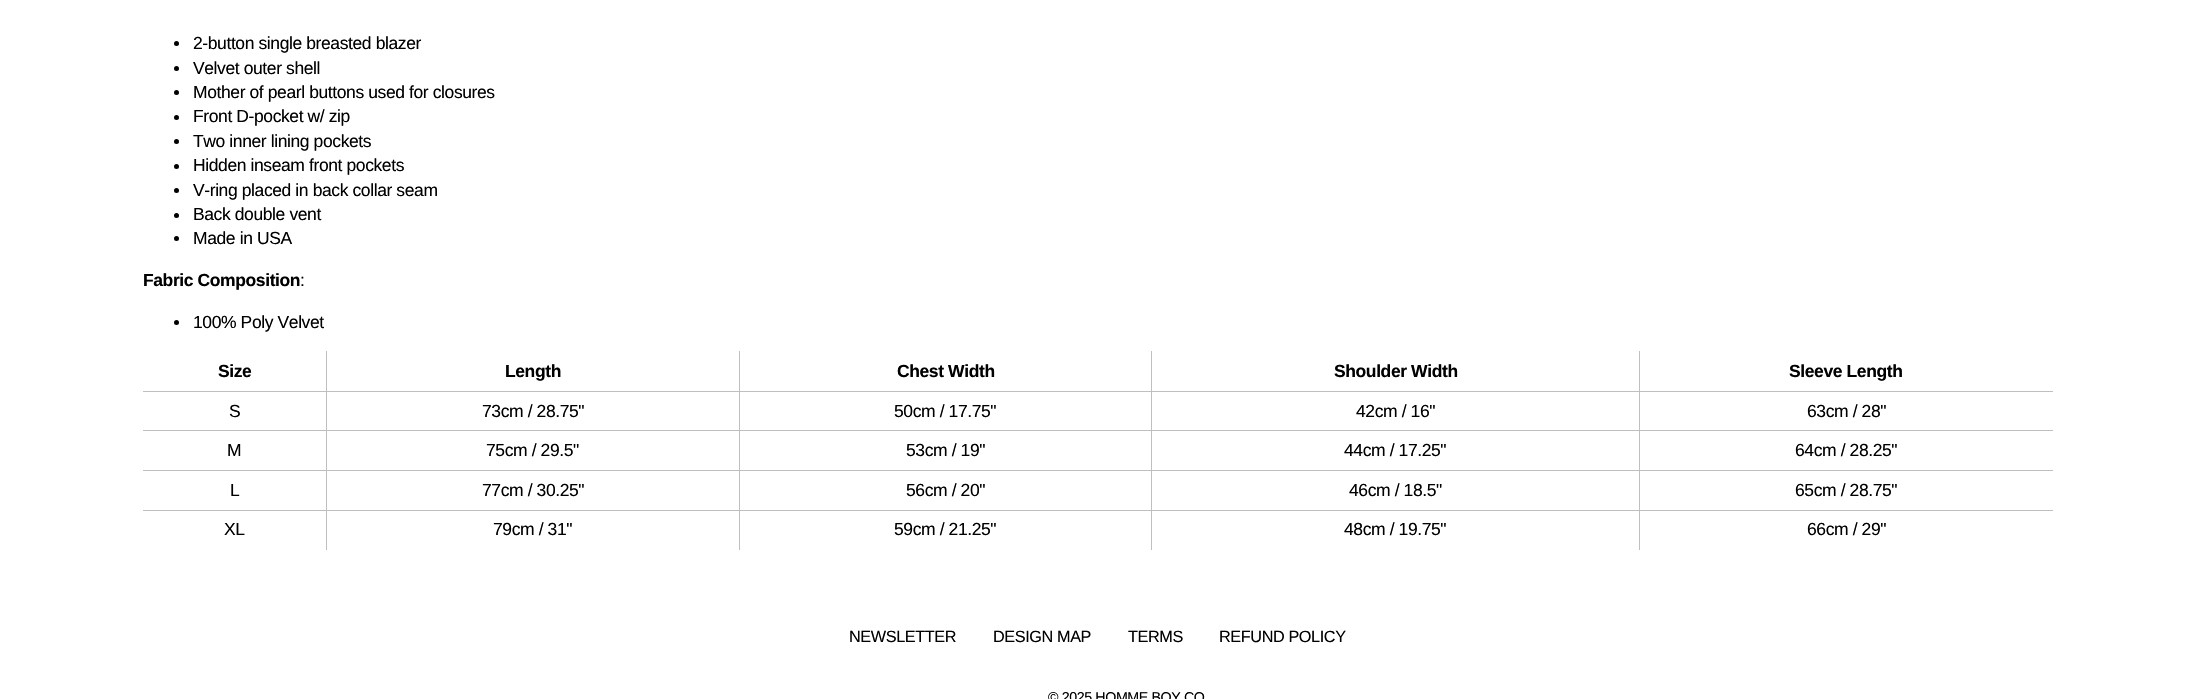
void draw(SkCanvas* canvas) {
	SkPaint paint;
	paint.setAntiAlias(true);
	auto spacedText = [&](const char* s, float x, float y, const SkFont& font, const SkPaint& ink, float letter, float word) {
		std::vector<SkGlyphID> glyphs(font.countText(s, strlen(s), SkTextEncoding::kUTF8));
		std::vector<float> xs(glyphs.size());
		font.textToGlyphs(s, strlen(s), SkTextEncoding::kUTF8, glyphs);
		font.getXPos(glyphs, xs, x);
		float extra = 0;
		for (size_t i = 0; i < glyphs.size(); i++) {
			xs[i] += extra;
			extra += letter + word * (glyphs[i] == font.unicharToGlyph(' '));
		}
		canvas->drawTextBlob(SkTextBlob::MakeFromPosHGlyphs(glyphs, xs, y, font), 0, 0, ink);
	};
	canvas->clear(0xffffffff);
	paint.setColor(0xff000000);
	canvas->drawCircle(176.5, 43.5, 2.5, paint);
	SkFont f1(fontMgr->matchFamilyStyle("Liberation Sans", SkFontStyle::Normal()), 17.5);
	f1.setSubpixel(true);
	spacedText("2-button single breasted blazer", 193, 49, f1, paint, -0.4, 0);
	canvas->drawCircle(176.5, 68.5, 2.5, paint);
	spacedText("Velvet outer shell", 193, 74, f1, paint, -0.4, 0);
	canvas->drawCircle(176.5, 92.5, 2.5, paint);
	spacedText("Mother of pearl buttons used for closures", 193, 98, f1, paint, -0.4, 0);
	canvas->drawCircle(176.5, 117.5, 2.5, paint);
	spacedText("Front D-pocket w/ zip", 193, 122, f1, paint, -0.4, 0);
	canvas->drawCircle(176.5, 141.5, 2.5, paint);
	spacedText("Two inner lining pockets", 193, 147, f1, paint, -0.4, 0);
	canvas->drawCircle(176.5, 166.5, 2.5, paint);
	spacedText("Hidden inseam front pockets", 193, 171, f1, paint, -0.4, 0);
	canvas->drawCircle(176.5, 190.5, 2.5, paint);
	spacedText("V-ring placed in back collar seam", 193, 196, f1, paint, -0.4, 0);
	canvas->drawCircle(176.5, 215.5, 2.5, paint);
	spacedText("Back double vent", 193, 220, f1, paint, -0.4, 0);
	canvas->drawCircle(176.5, 238.5, 2.5, paint);
	spacedText("Made in USA", 193, 244, f1, paint, -0.4, 0);
	SkFont f2(fontMgr->matchFamilyStyle("Liberation Sans", SkFontStyle::Bold()), 17.5);
	f2.setSubpixel(true);
	spacedText("Fabric Composition", 143, 286, f2, paint, -0.4, 0);
	spacedText(":", 300, 286, f1, paint, -0.4, 0);
	canvas->drawCircle(176.5, 322.5, 2.5, paint);
	spacedText("100% Poly Velvet", 193, 328, f1, paint, -0.4, 0);
	spacedText("Size", 218, 377, f2, paint, -0.4, 0);
	spacedText("Length", 505, 377, f2, paint, -0.4, 0);
	spacedText("Chest Width", 897, 377, f2, paint, -0.4, 0);
	spacedText("Shoulder Width", 1334, 377, f2, paint, -0.4, 0);
	spacedText("Sleeve Length", 1789, 377, f2, paint, -0.4, 0);
	paint.setColor(0xffbfbfbf);
	canvas->drawRect(SkRect::MakeXYWH(143, 391, 1910, 1), paint);
	paint.setColor(0xff000000);
	spacedText("S", 229, 417, f1, paint, -0.4, 0);
	spacedText("73cm / 28.75\"", 482, 417, f1, paint, -0.4, 0);
	spacedText("50cm / 17.75\"", 894, 417, f1, paint, -0.4, 0);
	spacedText("42cm / 16\"", 1356, 417, f1, paint, -0.4, 0);
	spacedText("63cm / 28\"", 1807, 417, f1, paint, -0.4, 0);
	paint.setColor(0xffbfbfbf);
	canvas->drawRect(SkRect::MakeXYWH(143, 430, 1910, 1), paint);
	paint.setColor(0xff000000);
	spacedText("M", 227, 456, f1, paint, -0.4, 0);
	spacedText("75cm / 29.5\"", 486, 456, f1, paint, -0.4, 0);
	spacedText("53cm / 19\"", 906, 456, f1, paint, -0.4, 0);
	spacedText("44cm / 17.25\"", 1344, 456, f1, paint, -0.4, 0);
	spacedText("64cm / 28.25\"", 1795, 456, f1, paint, -0.4, 0);
	paint.setColor(0xffbfbfbf);
	canvas->drawRect(SkRect::MakeXYWH(143, 470, 1910, 1), paint);
	paint.setColor(0xff000000);
	spacedText("L", 230, 496, f1, paint, -0.4, 0);
	spacedText("77cm / 30.25\"", 482, 496, f1, paint, -0.4, 0);
	spacedText("56cm / 20\"", 906, 496, f1, paint, -0.4, 0);
	spacedText("46cm / 18.5\"", 1349, 496, f1, paint, -0.4, 0);
	spacedText("65cm / 28.75\"", 1795, 496, f1, paint, -0.4, 0);
	paint.setColor(0xffbfbfbf);
	canvas->drawRect(SkRect::MakeXYWH(143, 510, 1910, 1), paint);
	paint.setColor(0xff000000);
	spacedText("XL", 224, 535, f1, paint, -0.4, 0);
	paint.setColor(0xffbfbfbf);
	canvas->drawRect(SkRect::MakeXYWH(326, 351, 1, 199), paint);
	paint.setColor(0xff000000);
	spacedText("79cm / 31\"", 493, 535, f1, paint, -0.4, 0);
	paint.setColor(0xffbfbfbf);
	canvas->drawRect(SkRect::MakeXYWH(739, 351, 1, 199), paint);
	paint.setColor(0xff000000);
	spacedText("59cm / 21.25\"", 894, 535, f1, paint, -0.4, 0);
	paint.setColor(0xffbfbfbf);
	canvas->drawRect(SkRect::MakeXYWH(1151, 351, 1, 199), paint);
	paint.setColor(0xff000000);
	spacedText("48cm / 19.75\"", 1344, 535, f1, paint, -0.4, 0);
	paint.setColor(0xffbfbfbf);
	canvas->drawRect(SkRect::MakeXYWH(1639, 351, 1, 199), paint);
	paint.setColor(0xff000000);
	spacedText("66cm / 29\"", 1807, 535, f1, paint, -0.4, 0);
	SkFont f3(fontMgr->matchFamilyStyle("Liberation Sans", SkFontStyle::Normal()), 16.25);
	f3.setSubpixel(true);
	spacedText("NEWSLETTER", 849, 642, f3, paint, -0.4, 0);
	spacedText("DESIGN MAP", 993, 642, f3, paint, -0.4, 0);
	spacedText("TERMS", 1128, 642, f3, paint, -0.4, 0);
	spacedText("REFUND POLICY", 1219, 642, f3, paint, -0.4, 0);
	SkFont f4(fontMgr->matchFamilyStyle("Liberation Sans", SkFontStyle::Normal()), 14.25);
	f4.setSubpixel(true);
	spacedText("© 2025 HOMME BOY CO", 1048, 702, f4, paint, -0.4, 0);
}
